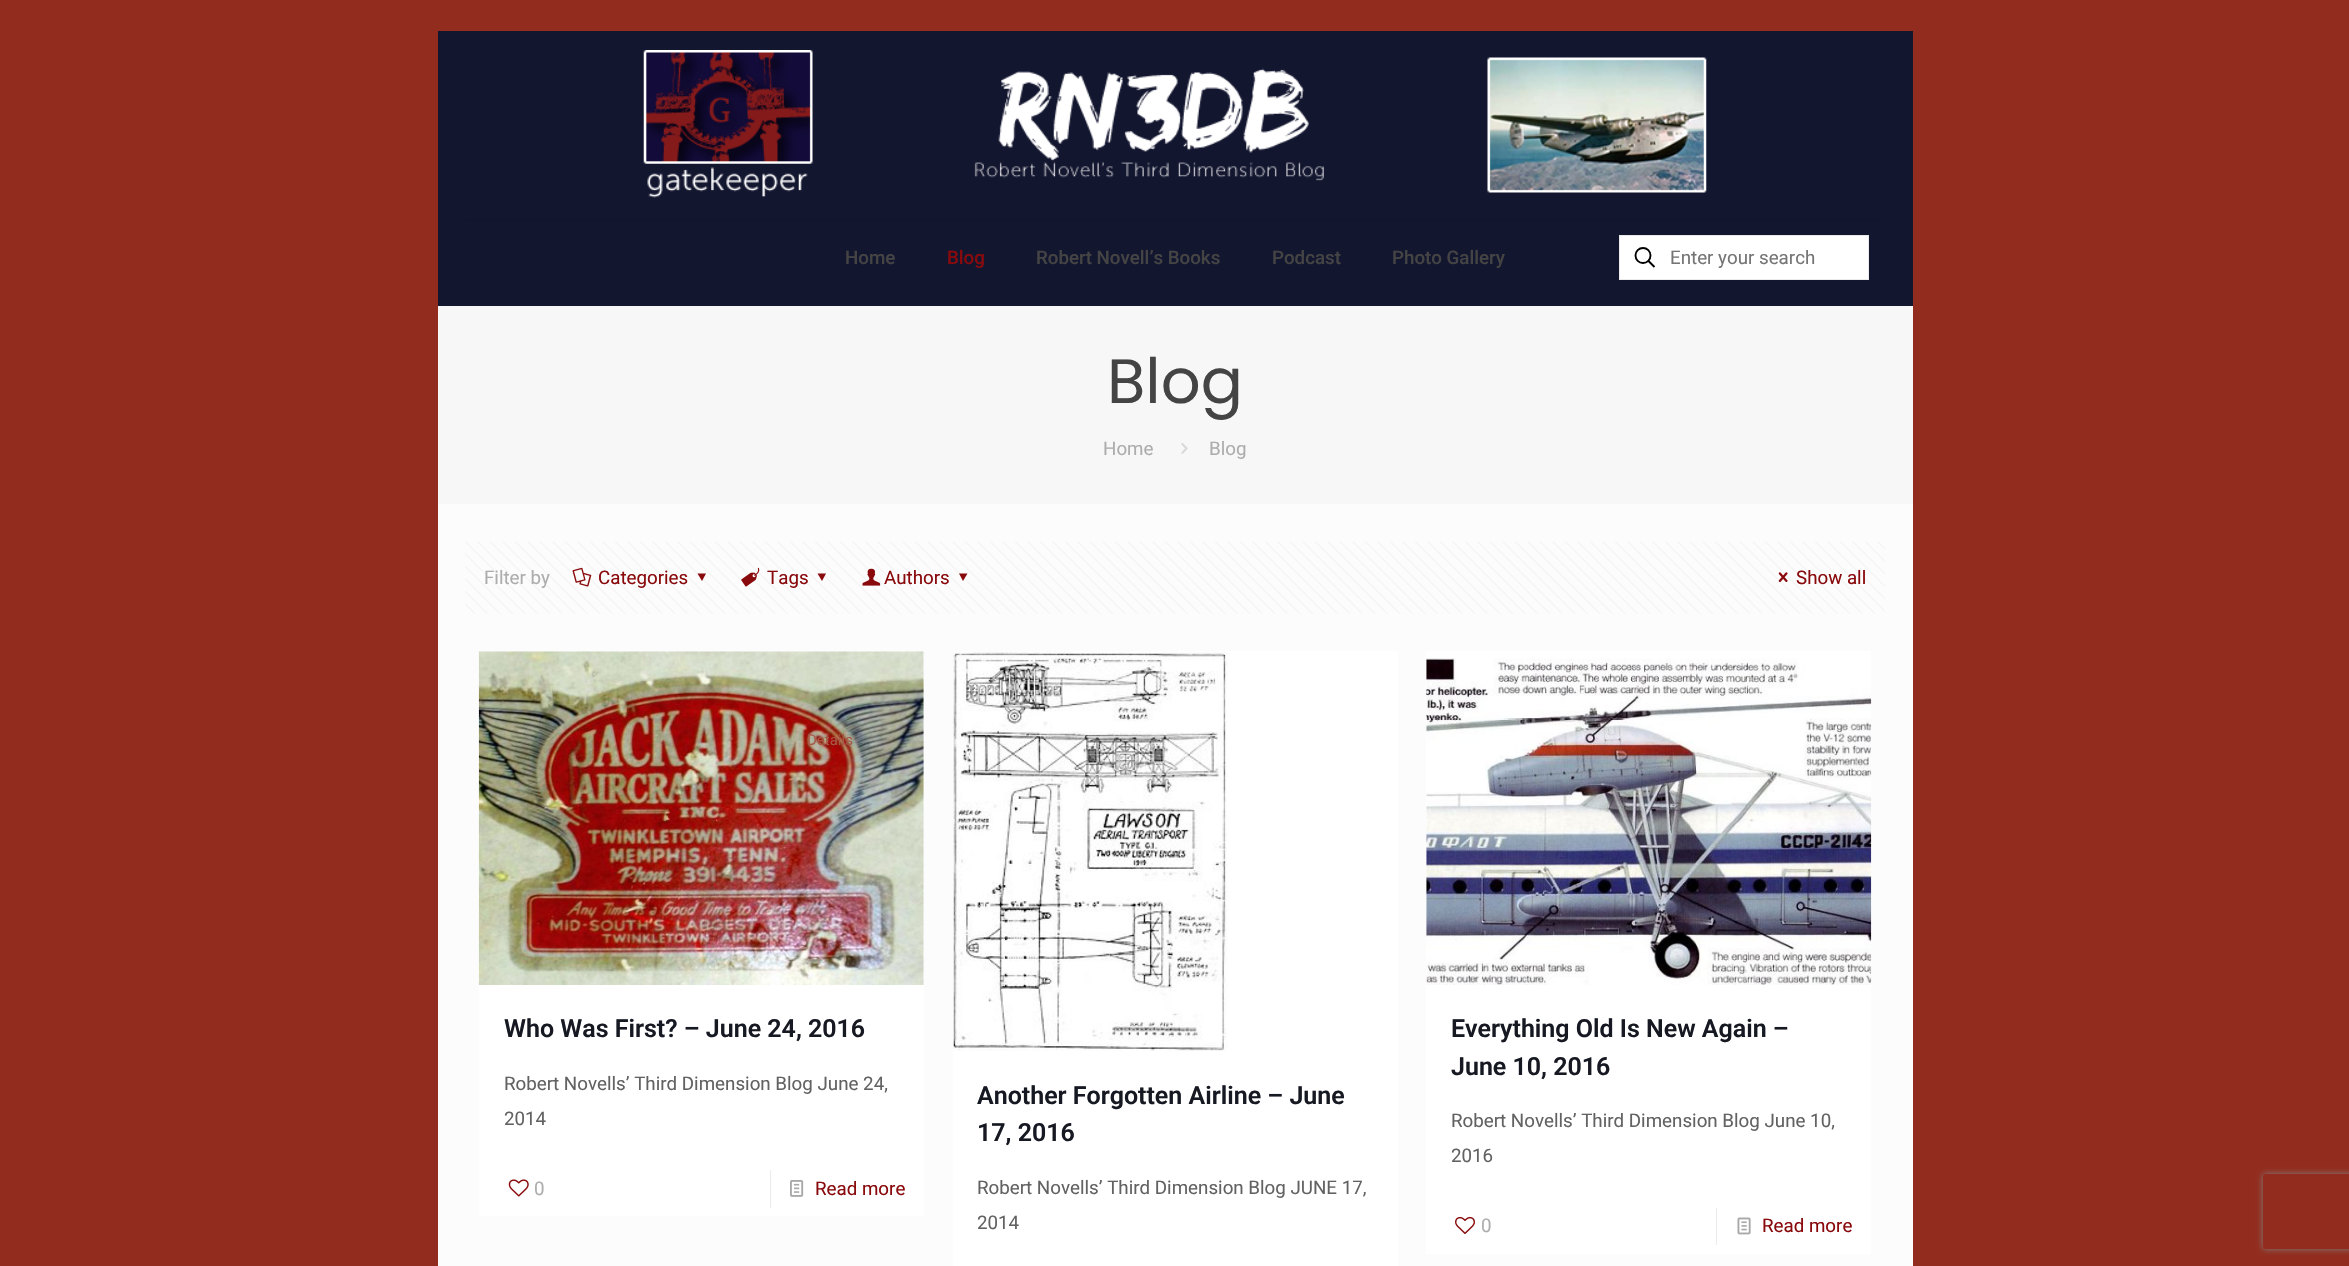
void draw(SkCanvas* canvas) {
	SkPaint paint;
	paint.setAntiAlias(true);
	auto svgPath = [&](const char* data, bool evenOdd = false) {
		SkPath result = *SkParsePath::FromSVGString(data);
		if (evenOdd) result.setFillType(SkPathFillType::kEvenOdd);
		return result;
	};
	canvas->clear(0xff922c1e);
	paint.setColor(0xfffcfcfc);
	canvas->drawRect(SkRect::MakeXYWH(438, 504, 1475, 762), paint);
	paint.setColor(0xff13162f);
	canvas->drawRect(SkRect::MakeXYWH(438, 31, 1475, 275), paint);
	paint.setColor(0xff11142b);
	canvas->drawRect(SkRect::MakeXYWH(465, 219, 1420, 1), paint);
	canvas->drawImageRect(SkImages::DeferredFromEncodedData(SkData::MakeFromFileName("img1.png")), SkRect::MakeXYWH(643, 50, 1064, 148), SkSamplingOptions());
	SkFont f1(fontMgr->matchFamilyStyle("Roboto", SkFontStyle(500, SkFontStyle::kNormal_Width, SkFontStyle::kUpright_Slant)), 18.75);
	f1.setSubpixel(true);
	paint.setColor(0xff444444);
	canvas->drawString("Home", 845, 264, f1, paint);
	paint.setColor(0xff890a0c);
	canvas->drawString("Blog", 947, 264, f1, paint);
	paint.setColor(0xff444444);
	canvas->drawString("Robert Novell’s Books", 1036, 264, f1, paint);
	canvas->drawString("Podcast", 1272, 264, f1, paint);
	canvas->drawString("Photo Gallery", 1392, 264, f1, paint);
	paint.setColor(0xffffffff);
	canvas->drawRect(SkRect::MakeXYWH(1619.5, 235.5, 249, 44), paint);
	paint.setStroke(true);
	paint.setStrokeWidth(1);
	paint.setColor(0xffebebeb);
	canvas->drawRect(SkRect::MakeXYWH(1619.5, 235.5, 249, 44), paint);
	paint.setStrokeWidth(1.9);
	paint.setColor(0xff000000);
	canvas->drawCircle(1643, 255.5, 7.5, paint);
	canvas->drawPath(svgPath("M1648 260.5L1654.5 267"), paint);
	SkFont f2(fontMgr->matchFamilyStyle("Roboto", SkFontStyle::Normal()), 18.75);
	f2.setSubpixel(true);
	paint.setStroke(false);
	paint.setColor(0xff757575);
	canvas->drawString("Enter your search", 1670, 264, f2, paint);
	paint.setColor(0xfff7f7f7);
	canvas->drawRect(SkRect::MakeXYWH(438, 306, 1475, 198), paint);
	SkFont f3(fontMgr->matchFamilyStyle("Poppins", SkFontStyle::Normal()), 62.5);
	f3.setSubpixel(true);
	paint.setColor(0xff444444);
	canvas->drawString("Blog", 1107, 403, f3, paint);
	paint.setColor(0xffadadad);
	canvas->drawString("Home", 1103, 455, f2, paint);
	canvas->drawImageRect(SkImages::DeferredFromEncodedData(SkData::MakeFromFileName("img2.png")), SkRect::MakeXYWH(1181, 443, 7, 11), SkSamplingOptions());
	canvas->drawString("Blog", 1209, 455, f2, paint);
	canvas->drawImageRect(SkImages::DeferredFromEncodedData(SkData::MakeFromFileName("img3.png")), SkRect::MakeXYWH(465, 541, 1420, 73), SkSamplingOptions());
	canvas->drawString("Filter by", 484, 584, f2, paint);
	canvas->drawImageRect(SkImages::DeferredFromEncodedData(SkData::MakeFromFileName("img4.png")), SkRect::MakeXYWH(572, 567, 20, 20), SkSamplingOptions());
	paint.setColor(0xff890a0c);
	canvas->drawString("Categories", 598, 584, f2, paint);
	canvas->drawPath(svgPath("M706 573.5L702 581L697.5 573.5Z"), paint);
	canvas->drawImageRect(SkImages::DeferredFromEncodedData(SkData::MakeFromFileName("img5.png")), SkRect::MakeXYWH(741, 567, 19, 20), SkSamplingOptions());
	canvas->drawString("Tags", 767, 584, f2, paint);
	canvas->drawPath(svgPath("M826 573.5L822 581L817.5 573.5Z"), paint);
	canvas->drawImageRect(SkImages::DeferredFromEncodedData(SkData::MakeFromFileName("img6.png")), SkRect::MakeXYWH(862, 568, 19, 18), SkSamplingOptions());
	canvas->drawString("Authors", 884, 584, f2, paint);
	canvas->drawPath(svgPath("M967.5 573.5L963 581L959 573.5Z"), paint);
	canvas->drawImageRect(SkImages::DeferredFromEncodedData(SkData::MakeFromFileName("img7.png")), SkRect::MakeXYWH(1778, 572, 10, 10), SkSamplingOptions());
	canvas->drawString("Show all", 1796, 584, f2, paint);
	paint.setColor(0xffffffff);
	canvas->drawRect(SkRect::MakeXYWH(479, 651, 445, 565), paint);
	canvas->drawImageRect(SkImages::DeferredFromEncodedData(SkData::MakeFromFileName("img8.png")), SkRect::MakeXYWH(478, 651, 446, 334), SkSamplingOptions());
	SkFont f4(fontMgr->matchFamilyStyle("Roboto", SkFontStyle::Normal()), 15);
	f4.setSubpixel(true);
	paint.setColor(0xffa55a47);
	canvas->drawString("Details", 807, 745, f4, paint);
	SkFont f5(fontMgr->matchFamilyStyle("Roboto", SkFontStyle(600, SkFontStyle::kNormal_Width, SkFontStyle::kUpright_Slant)), 25);
	f5.setSubpixel(true);
	paint.setColor(0xff161922);
	canvas->drawString("Who Was First? – June 24, 2016", 504, 1037, f5, paint);
	paint.setColor(0xff626262);
	canvas->drawString("Robert Novells’ Third Dimension Blog June 24,", 504, 1090, f2, paint);
	canvas->drawString("2014", 504, 1125, f2, paint);
	canvas->drawImageRect(SkImages::DeferredFromEncodedData(SkData::MakeFromFileName("img9.png")), SkRect::MakeXYWH(508, 1179, 21, 18), SkSamplingOptions());
	paint.setColor(0xffadadad);
	canvas->drawString("0", 534, 1195, f2, paint);
	paint.setColor(0xffebebeb);
	canvas->drawRect(SkRect::MakeXYWH(770, 1170, 1, 38), paint);
	canvas->drawImageRect(SkImages::DeferredFromEncodedData(SkData::MakeFromFileName("img10.png")), SkRect::MakeXYWH(790, 1180, 14, 17), SkSamplingOptions());
	paint.setColor(0xff890a0c);
	canvas->drawString("Read more", 815, 1195, f2, paint);
	paint.setColor(0xffffffff);
	canvas->drawRect(SkRect::MakeXYWH(953, 651, 445, 615), paint);
	canvas->drawImageRect(SkImages::DeferredFromEncodedData(SkData::MakeFromFileName("img11.png")), SkRect::MakeXYWH(953, 651, 275, 400), SkSamplingOptions());
	paint.setColor(0xff161922);
	canvas->drawString("Another Forgotten Airline – June", 977, 1104, f5, paint);
	canvas->drawString("17, 2016", 977, 1141, f5, paint);
	paint.setColor(0xff626262);
	canvas->drawString("Robert Novells’ Third Dimension Blog JUNE 17,", 977, 1194, f2, paint);
	canvas->drawString("2014", 977, 1229, f2, paint);
	paint.setColor(0xffffffff);
	canvas->drawRect(SkRect::MakeXYWH(1426, 651, 445, 603), paint);
	canvas->drawImageRect(SkImages::DeferredFromEncodedData(SkData::MakeFromFileName("img12.png")), SkRect::MakeXYWH(1426, 658, 446, 327), SkSamplingOptions());
	paint.setColor(0xff161922);
	canvas->drawString("Everything Old Is New Again –", 1451, 1037, f5, paint);
	canvas->drawString("June 10, 2016", 1451, 1075, f5, paint);
	paint.setColor(0xff626262);
	canvas->drawString("Robert Novells’ Third Dimension Blog June 10,", 1451, 1127, f2, paint);
	canvas->drawString("2016", 1451, 1162, f2, paint);
	canvas->drawImageRect(SkImages::DeferredFromEncodedData(SkData::MakeFromFileName("img13.png")), SkRect::MakeXYWH(1455, 1216, 20, 18), SkSamplingOptions());
	paint.setColor(0xffadadad);
	canvas->drawString("0", 1481, 1232, f2, paint);
	paint.setColor(0xffebebeb);
	canvas->drawRect(SkRect::MakeXYWH(1716, 1208, 1, 37), paint);
	canvas->drawImageRect(SkImages::DeferredFromEncodedData(SkData::MakeFromFileName("img14.png")), SkRect::MakeXYWH(1737, 1217, 14, 18), SkSamplingOptions());
	paint.setColor(0xff890a0c);
	canvas->drawString("Read more", 1762, 1232, f2, paint);
	canvas->save();
	canvas->clipPath(svgPath("M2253 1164H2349V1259H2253ZM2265.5 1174H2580.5C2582 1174 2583 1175 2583 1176.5V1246.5C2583 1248 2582 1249 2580.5 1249H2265.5C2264 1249 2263 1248 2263 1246.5V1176.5C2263 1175 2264 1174 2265.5 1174Z", true), true);
	paint.setColor(0xff808080);
	paint.setMaskFilter(SkMaskFilter::MakeBlur(kNormal_SkBlurStyle, 3));
	canvas->drawRoundRect(SkRect::MakeXYWH(2263, 1174, 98, 75), 2.5, 2.5, paint);
	paint.setMaskFilter(nullptr);
	canvas->restore();
}
